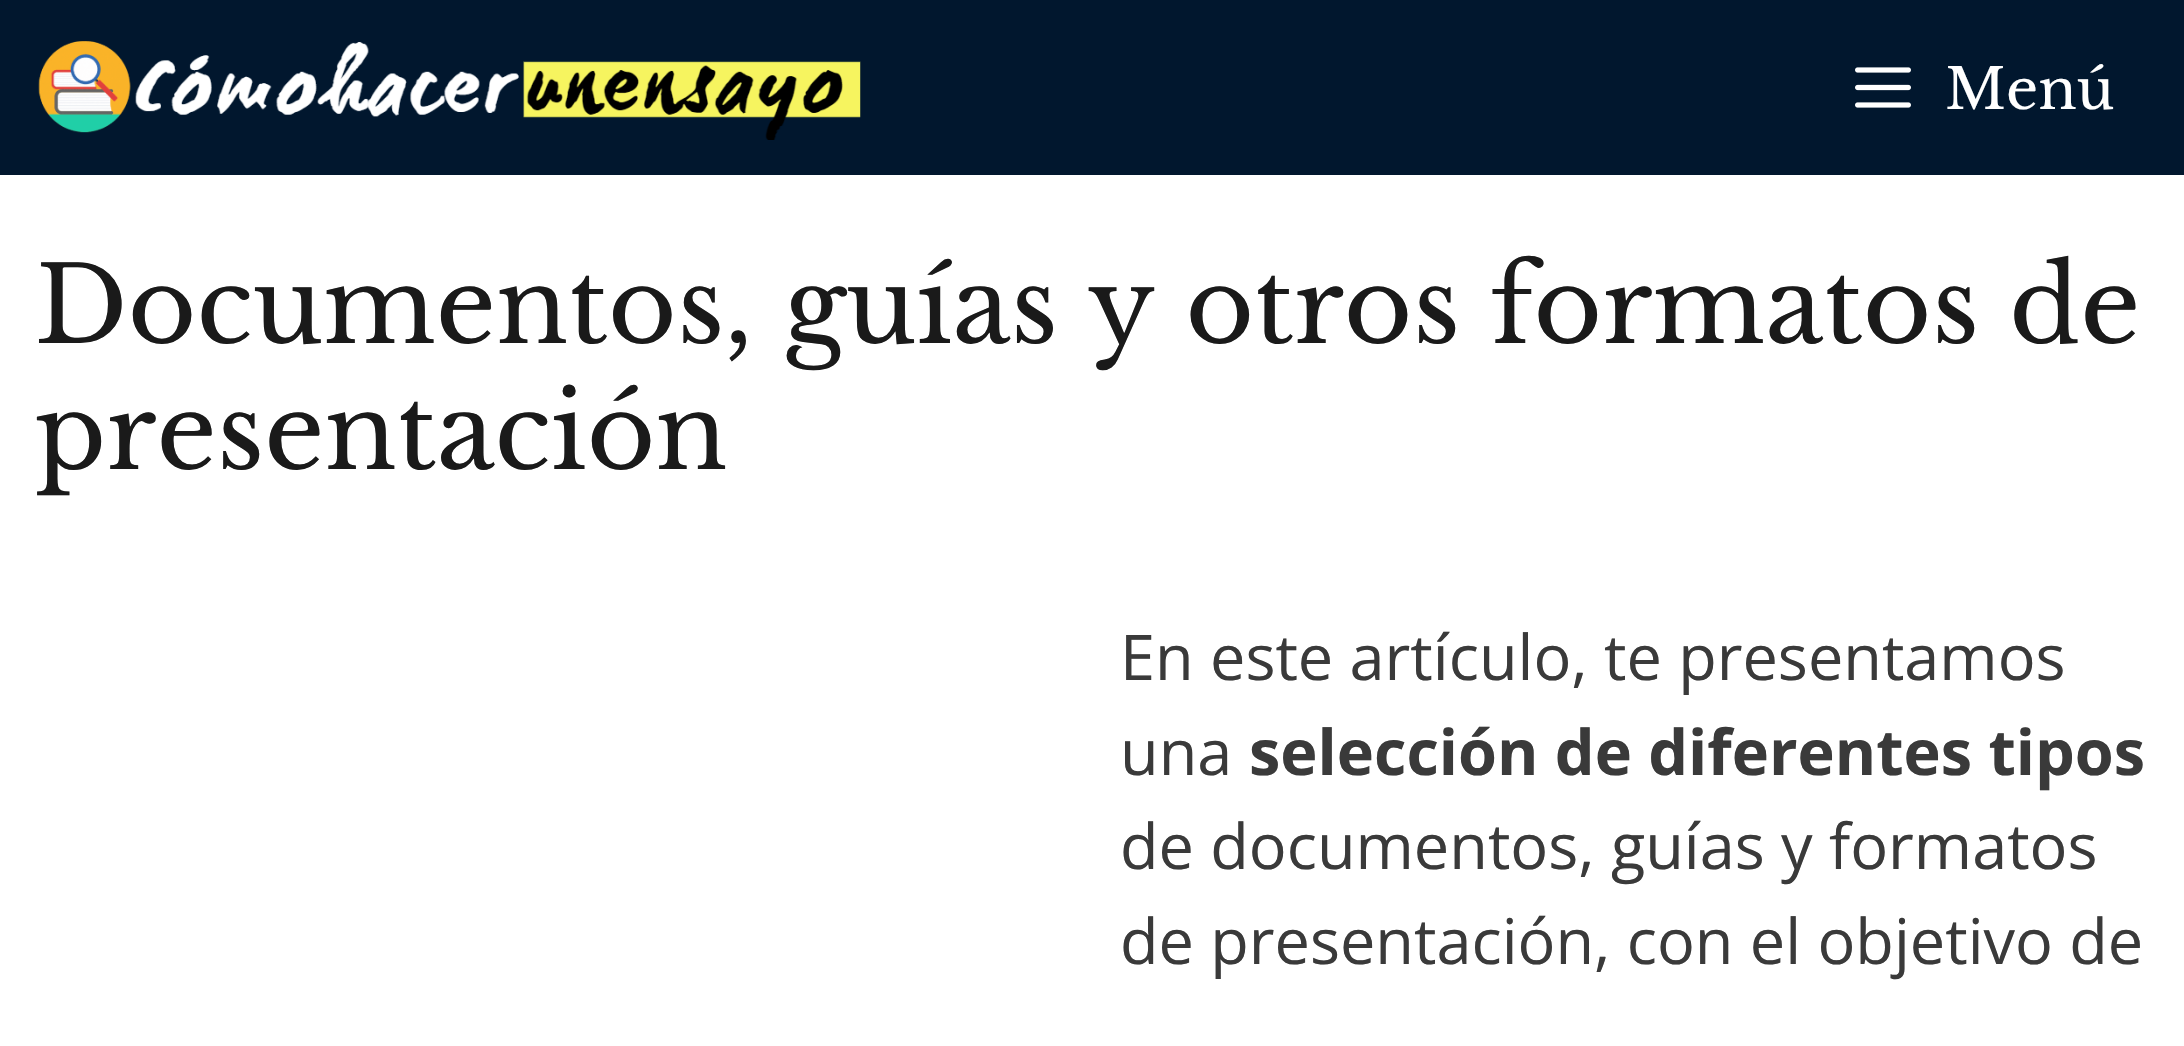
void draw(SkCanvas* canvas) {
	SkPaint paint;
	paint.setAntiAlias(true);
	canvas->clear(0xffffffff);
	paint.setColor(0xff01172e);
	canvas->drawRect(SkRect::MakeXYWH(0, 0, 2184, 175), paint);
	canvas->drawImageRect(SkImages::DeferredFromEncodedData(SkData::MakeFromFileName("img1.png")), SkRect::MakeXYWH(38, 41, 823, 99), SkSamplingOptions());
	canvas->drawImageRect(SkImages::DeferredFromEncodedData(SkData::MakeFromFileName("img2.png")), SkRect::MakeXYWH(1855, 67, 56, 41), SkSamplingOptions());
	SkFont f1(fontMgr->matchFamilyStyle("Libre Baskerville", SkFontStyle::Normal()), 56);
	f1.setSubpixel(true);
	paint.setColor(0xffffffff);
	canvas->drawString("Menú", 1945, 109, f1, paint);
	SkFont f2(fontMgr->matchFamilyStyle("Libre Baskerville", SkFontStyle::Normal()), 105);
	f2.setSubpixel(true);
	paint.setColor(0xff1a1a1a);
	canvas->drawString("Documentos, guías y otros formatos de", 35, 343, f2, paint);
	canvas->drawString("presentación", 35, 469, f2, paint);
	SkFont f3(fontMgr->matchFamilyStyle("Open Sans", SkFontStyle::Normal()), 63);
	f3.setSubpixel(true);
	paint.setColor(0xff3a3a3a);
	canvas->drawString("En este artículo, te presentamos", 1120, 680, f3, paint);
	canvas->drawString("una", 1120, 775, f3, paint);
	SkFont f4(fontMgr->matchFamilyStyle("Open Sans", SkFontStyle::Bold()), 63);
	f4.setSubpixel(true);
	canvas->drawString("selección de diferentes tipos", 1249, 775, f4, paint);
	canvas->drawString("de documentos, guías y formatos", 1120, 869, f3, paint);
	canvas->drawString("de presentación, con el objetivo de", 1120, 964, f3, paint);
}
